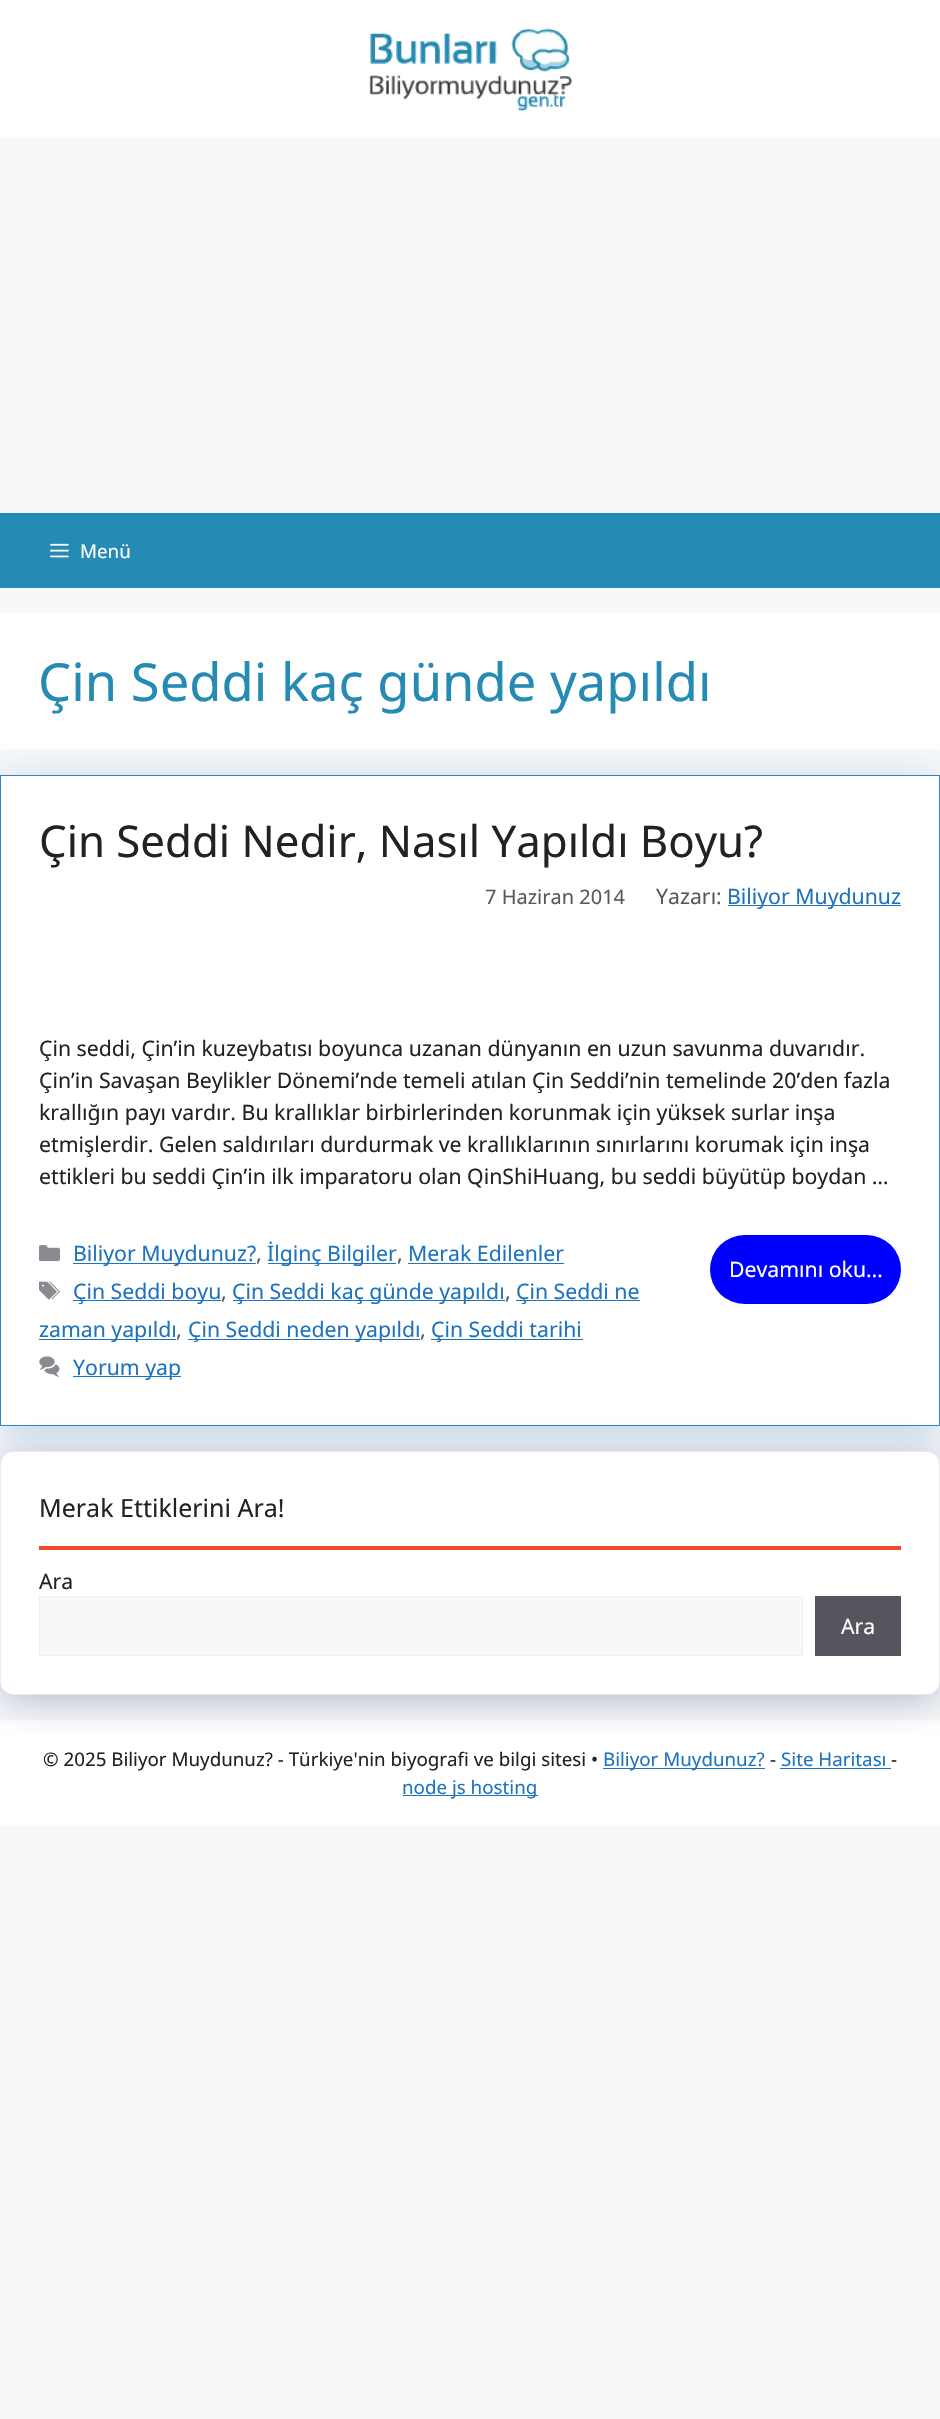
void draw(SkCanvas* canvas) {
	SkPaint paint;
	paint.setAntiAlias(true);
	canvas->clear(0xfff7f8f9);
	paint.setColor(0xffffffff);
	canvas->drawRect(SkRect::MakeXYWH(0, 0, 940, 138), paint);
	canvas->drawImageRect(SkImages::DeferredFromEncodedData(SkData::MakeFromFileName("img1.png")), SkRect::MakeXYWH(369, 28, 204, 84), SkSamplingOptions());
	paint.setColor(0xff258bb5);
	canvas->drawRect(SkRect::MakeXYWH(0, 513, 940, 75), paint);
	canvas->drawImageRect(SkImages::DeferredFromEncodedData(SkData::MakeFromFileName("img2.png")), SkRect::MakeXYWH(50, 543, 19, 15), SkSamplingOptions());
	SkFont f1(fontMgr->matchFamilyStyle("Noto Sans", SkFontStyle::Normal()), 18.75);
	f1.setSubpixel(true);
	paint.setColor(0xffffffff);
	canvas->drawString("Menü", 80, 558, f1, paint);
	canvas->drawRect(SkRect::MakeXYWH(0, 613, 940, 137), paint);
	SkFont f2(fontMgr->matchFamilyStyle("Noto Sans", SkFontStyle::Normal()), 52.5);
	f2.setSubpixel(true);
	paint.setColor(0xff258bb5);
	canvas->drawString("Çin Seddi kaç günde yapıldı", 38, 701, f2, paint);
	paint.setColor(0x4d3582c4);
	paint.setMaskFilter(SkMaskFilter::MakeBlur(kNormal_SkBlurStyle, 19));
	canvas->drawRect(SkRect::MakeXYWH(0, 781, 940, 652), paint);
	paint.setMaskFilter(nullptr);
	paint.setColor(0xffffffff);
	canvas->drawRect(SkRect::MakeXYWH(0.5, 775.5, 939, 650), paint);
	paint.setStroke(true);
	paint.setStrokeWidth(1);
	paint.setColor(0xff3582c4);
	canvas->drawRect(SkRect::MakeXYWH(0.5, 775.5, 939, 650), paint);
	SkFont f3(fontMgr->matchFamilyStyle("Noto Sans", SkFontStyle::Normal()), 43.75);
	f3.setSubpixel(true);
	paint.setStroke(false);
	paint.setColor(0xff222222);
	canvas->drawString("Çin Seddi Nedir, Nasıl Yapıldı Boyu?", 39, 857, f3, paint);
	SkFont f4(fontMgr->matchFamilyStyle("Noto Sans", SkFontStyle::Normal()), 20);
	f4.setSubpixel(true);
	paint.setColor(0xff575760);
	canvas->drawString("7 Haziran 2014", 485, 904, f4, paint);
	SkFont f5(fontMgr->matchFamilyStyle("Noto Sans", SkFontStyle::Normal()), 21.25);
	f5.setSubpixel(true);
	canvas->drawString("Yazarı:", 656, 904, f5, paint);
	paint.setColor(0xff1e73be);
	canvas->drawRect(SkRect::MakeXYWH(728, 905, 173, 1), paint);
	canvas->drawString("Biliyor Muydunuz", 727, 904, f5, paint);
	paint.setColor(0xff222222);
	canvas->drawString("Çin seddi, Çin’in kuzeybatısı boyunca uzanan dünyanın en uzun savunma duvarıdır.", 39, 1056, f5, paint);
	canvas->drawString("Çin’in Savaşan Beylikler Dönemi’nde temeli atılan Çin Seddi’nin temelinde 20’den fazla", 39, 1088, f5, paint);
	canvas->drawString("krallığın payı vardır. Bu krallıklar birbirlerinden korunmak için yüksek surlar inşa", 39, 1120, f5, paint);
	canvas->drawString("etmişlerdir. Gelen saldırıları durdurmak ve krallıklarının sınırlarını korumak için inşa", 39, 1152, f5, paint);
	canvas->drawString("ettikleri bu seddi Çin’in ilk imparatoru olan QinShiHuang, bu seddi büyütüp boydan …", 39, 1184, f5, paint);
	paint.setColor(0xff0000ff);
	canvas->drawRoundRect(SkRect::MakeXYWH(710, 1235, 191, 69), 34.5, 34.5, paint);
	paint.setColor(0xffffffff);
	canvas->drawString("Devamını oku…", 729, 1277, f5, paint);
	canvas->drawImageRect(SkImages::DeferredFromEncodedData(SkData::MakeFromFileName("img3.png")), SkRect::MakeXYWH(39, 1245, 21, 17), SkSamplingOptions());
	paint.setColor(0xff1e73be);
	canvas->drawRect(SkRect::MakeXYWH(73, 1263, 183, 1), paint);
	canvas->drawString("Biliyor Muydunuz?", 73, 1261, f5, paint);
	paint.setColor(0xff575760);
	canvas->drawString(",", 256, 1261, f5, paint);
	paint.setColor(0xff1e73be);
	canvas->drawRect(SkRect::MakeXYWH(268, 1263, 128, 1), paint);
	canvas->drawString("İlginç Bilgiler", 267, 1261, f5, paint);
	paint.setColor(0xff575760);
	canvas->drawString(",", 397, 1261, f5, paint);
	paint.setColor(0xff1e73be);
	canvas->drawString("Merak Edilenler", 408, 1261, f5, paint);
	canvas->drawRect(SkRect::MakeXYWH(408, 1263, 156, 1), paint);
	canvas->drawImageRect(SkImages::DeferredFromEncodedData(SkData::MakeFromFileName("img4.png")), SkRect::MakeXYWH(39, 1281, 21, 19), SkSamplingOptions());
	canvas->drawRect(SkRect::MakeXYWH(73, 1300, 148, 1), paint);
	canvas->drawString("Çin Seddi boyu", 73, 1299, f5, paint);
	paint.setColor(0xff575760);
	canvas->drawString(",", 221, 1299, f5, paint);
	paint.setColor(0xff1e73be);
	canvas->drawRect(SkRect::MakeXYWH(233, 1300, 272, 1), paint);
	canvas->drawString("Çin Seddi kaç günde yapıldı", 232, 1299, f5, paint);
	paint.setColor(0xff575760);
	canvas->drawString(",", 505, 1299, f5, paint);
	paint.setColor(0xff1e73be);
	canvas->drawRect(SkRect::MakeXYWH(516, 1300, 124, 1), paint);
	canvas->drawString("Çin Seddi ne", 516, 1299, f5, paint);
	canvas->drawRect(SkRect::MakeXYWH(39, 1339, 137, 1), paint);
	canvas->drawString("zaman yapıldı", 39, 1337, f5, paint);
	paint.setColor(0xff575760);
	canvas->drawString(",", 176, 1337, f5, paint);
	paint.setColor(0xff1e73be);
	canvas->drawRect(SkRect::MakeXYWH(188, 1339, 232, 1), paint);
	canvas->drawString("Çin Seddi neden yapıldı", 188, 1337, f5, paint);
	paint.setColor(0xff575760);
	canvas->drawString(",", 420, 1337, f5, paint);
	paint.setColor(0xff1e73be);
	canvas->drawRect(SkRect::MakeXYWH(431, 1339, 152, 1), paint);
	canvas->drawString("Çin Seddi tarihi", 431, 1337, f5, paint);
	canvas->drawImageRect(SkImages::DeferredFromEncodedData(SkData::MakeFromFileName("img5.png")), SkRect::MakeXYWH(39, 1356, 21, 22), SkSamplingOptions());
	canvas->drawRect(SkRect::MakeXYWH(73, 1376, 108, 1), paint);
	canvas->drawString("Yorum yap", 73, 1375, f5, paint);
	paint.setColor(0xffffffff);
	canvas->drawRect(SkRect::MakeXYWH(0, 1720, 940, 106), paint);
	paint.setColor(0x4d172b63);
	paint.setMaskFilter(SkMaskFilter::MakeBlur(kNormal_SkBlurStyle, 19));
	canvas->drawRoundRect(SkRect::MakeXYWH(0, 1458, 940, 243), 13, 13, paint);
	paint.setMaskFilter(nullptr);
	paint.setColor(0xffffffff);
	canvas->drawRoundRect(SkRect::MakeXYWH(0.5, 1451.5, 939, 243), 12.5, 12.5, paint);
	paint.setStroke(true);
	paint.setColor(0xffe8eaed);
	canvas->drawRoundRect(SkRect::MakeXYWH(0.5, 1451.5, 939, 243), 12.5, 12.5, paint);
	SkFont f6(fontMgr->matchFamilyStyle("Noto Sans", SkFontStyle::Normal()), 25);
	f6.setSubpixel(true);
	paint.setStroke(false);
	paint.setColor(0xff222222);
	canvas->drawString("Merak Ettiklerini Ara!", 39, 1517, f6, paint);
	paint.setColor(0xffee4b2b);
	canvas->drawRect(SkRect::MakeXYWH(39, 1546, 862, 4), paint);
	paint.setColor(0xff222222);
	canvas->drawString("Ara", 39, 1589, f5, paint);
	paint.setColor(0xfff7f8f9);
	canvas->drawRect(SkRect::MakeXYWH(39.5, 1596.5, 763, 59), paint);
	paint.setStroke(true);
	paint.setColor(0xfff0f0f0);
	canvas->drawRect(SkRect::MakeXYWH(39.5, 1596.5, 763, 59), paint);
	paint.setStroke(false);
	paint.setColor(0xff55555e);
	canvas->drawRect(SkRect::MakeXYWH(815, 1596, 86, 60), paint);
	paint.setColor(0xffffffff);
	canvas->drawString("Ara", 841, 1634, f5, paint);
	paint.setColor(0xff222222);
	canvas->drawString("© 2025 Biliyor Muydunuz? - Türkiye'nin biyografi ve bilgi sitesi •", 43, 1766, f1, paint);
	paint.setColor(0xff1e73be);
	canvas->drawRect(SkRect::MakeXYWH(603, 1768, 162, 1), paint);
	canvas->drawString("Biliyor Muydunuz?", 603, 1766, f1, paint);
	paint.setColor(0xff222222);
	canvas->drawString("-", 770, 1766, f1, paint);
	paint.setColor(0xff1e73be);
	canvas->drawString("Site Haritası", 781, 1766, f1, paint);
	canvas->drawRect(SkRect::MakeXYWH(780, 1768, 111, 1), paint);
	paint.setColor(0xff222222);
	canvas->drawString("-", 891, 1766, f1, paint);
	paint.setColor(0xff1e73be);
	canvas->drawRect(SkRect::MakeXYWH(403, 1795, 135, 1), paint);
	canvas->drawString("node js hosting", 402, 1794, f1, paint);
}
